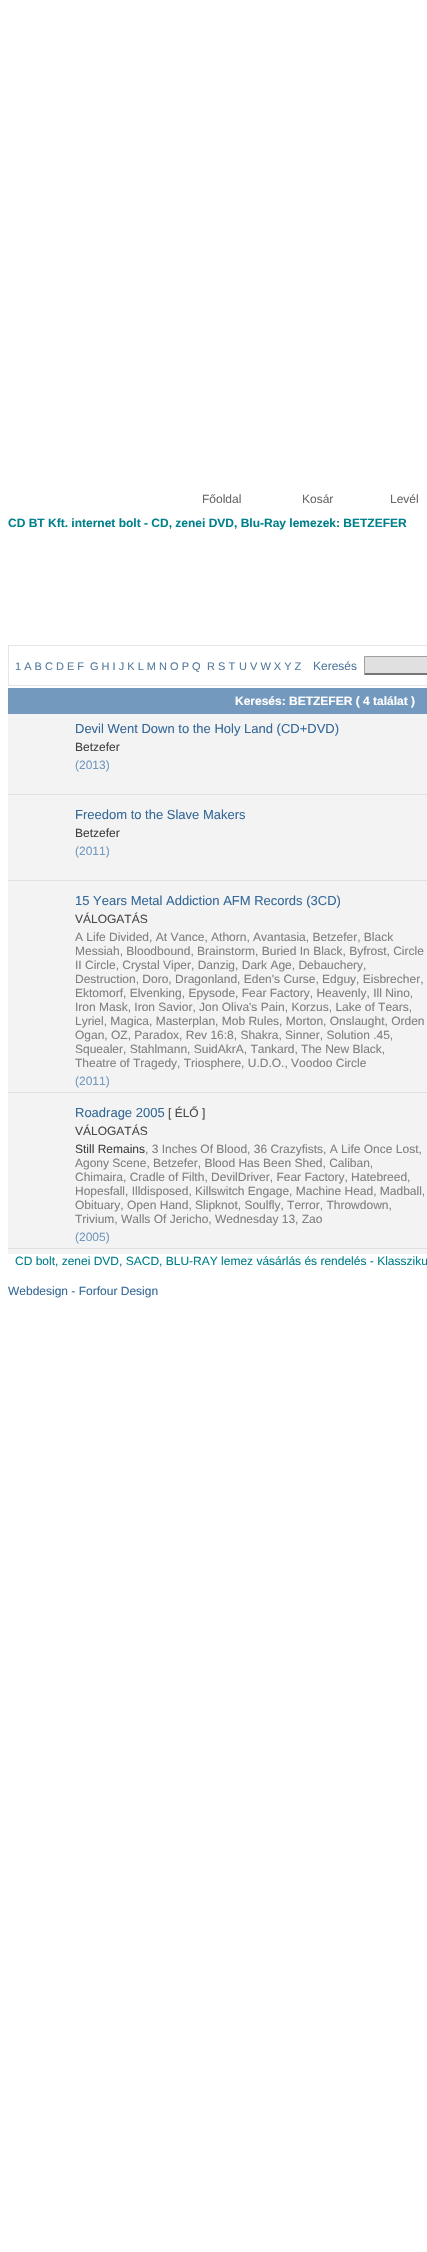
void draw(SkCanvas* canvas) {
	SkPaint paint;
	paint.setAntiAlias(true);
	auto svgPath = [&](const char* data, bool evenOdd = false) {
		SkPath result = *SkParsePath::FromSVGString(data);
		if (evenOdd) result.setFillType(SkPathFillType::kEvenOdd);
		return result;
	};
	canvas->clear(0xffffffff);
	SkFont f1(fontMgr->matchFamilyStyle("Liberation Sans", SkFontStyle::Normal()), 12);
	f1.setSubpixel(true);
	paint.setColor(0xff686868);
	canvas->drawString("Főoldal", 202, 503, f1, paint);
	canvas->drawString("Kosár", 302, 503, f1, paint);
	canvas->drawString("Levél", 390, 503, f1, paint);
	SkFont f2(fontMgr->matchFamilyStyle("Liberation Sans", SkFontStyle::Bold()), 12);
	f2.setSubpixel(true);
	paint.setColor(0xff00808b);
	canvas->drawString("CD BT Kft. internet bolt - CD, zenei DVD, Blu-Ray lemezek: BETZEFER", 8, 527, f2, paint);
	paint.setStroke(true);
	paint.setStrokeWidth(1);
	paint.setColor(0xffe6e6e6);
	canvas->drawRect(SkRect::MakeXYWH(8.5, 645.5, 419, 40), paint);
	SkFont f3(fontMgr->matchFamilyStyle("Liberation Sans", SkFontStyle::Normal()), 11);
	f3.setSubpixel(true);
	paint.setStroke(false);
	paint.setColor(0xff537a9e);
	canvas->drawString("1 A B C D E F", 15, 670, f3, paint);
	canvas->drawString("G H I J K L M N O P Q", 90, 670, f3, paint);
	canvas->drawString("R S T", 207, 670, f3, paint);
	canvas->drawString("U V W X Y Z", 239, 670, f3, paint);
	canvas->drawString("Keresés", 313, 670, f1, paint);
	paint.setColor(0xffe0e0e0);
	canvas->drawRect(SkRect::MakeXYWH(364, 656, 63, 19), paint);
	paint.setColor(0xffa0a0a0);
	canvas->drawPath(svgPath("M364 656H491L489 657H365Z"), paint);
	paint.setColor(0xff767676);
	canvas->drawPath(svgPath("M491 675H364L365 673H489Z"), paint);
	paint.setColor(0xffa0a0a0);
	canvas->drawPath(svgPath("M364 675V656L365 657V673Z"), paint);
	paint.setColor(0xff739abe);
	canvas->drawRect(SkRect::MakeXYWH(8, 688, 419, 26), paint);
	paint.setColor(0xffffffff);
	canvas->drawString("Keresés: BETZEFER ( 4 találat )", 235, 705, f2, paint);
	paint.setColor(0xfff3f3f3);
	canvas->drawRect(SkRect::MakeXYWH(8, 714, 419, 540), paint);
	SkFont f4(fontMgr->matchFamilyStyle("Liberation Sans", SkFontStyle::Normal()), 13);
	f4.setSubpixel(true);
	paint.setColor(0xff356999);
	canvas->drawString("Devil Went Down to the Holy Land (CD+DVD)", 75, 733, f4, paint);
	paint.setColor(0xff404040);
	canvas->drawString("Betzefer", 75, 751, f1, paint);
	paint.setColor(0xff739abe);
	canvas->drawString("(2013)", 75, 769, f1, paint);
	paint.setColor(0xffe0e0e0);
	canvas->drawRect(SkRect::MakeXYWH(8, 794, 419, 1), paint);
	paint.setColor(0xff356999);
	canvas->drawString("Freedom to the Slave Makers", 75, 819, f4, paint);
	paint.setColor(0xff404040);
	canvas->drawString("Betzefer", 75, 837, f1, paint);
	paint.setColor(0xff739abe);
	canvas->drawString("(2011)", 75, 855, f1, paint);
	paint.setColor(0xffe0e0e0);
	canvas->drawRect(SkRect::MakeXYWH(8, 880, 419, 1), paint);
	paint.setColor(0xff356999);
	canvas->drawString("15 Years Metal Addiction AFM Records (3CD)", 75, 905, f4, paint);
	paint.setColor(0xff484848);
	canvas->drawString("VÁLOGATÁS", 75, 923, f1, paint);
	paint.setColor(0xff808080);
	canvas->drawString("A Life Divided, At Vance, Athorn, Avantasia, Betzefer, Black", 75, 941, f1, paint);
	canvas->drawString("Messiah, Bloodbound, Brainstorm, Buried In Black, Byfrost, Circle", 75, 955, f1, paint);
	canvas->drawString("II Circle, Crystal Viper, Danzig, Dark Age, Debauchery,", 75, 969, f1, paint);
	canvas->drawString("Destruction, Doro, Dragonland, Eden's Curse, Edguy, Eisbrecher,", 75, 983, f1, paint);
	canvas->drawString("Ektomorf, Elvenking, Epysode, Fear Factory, Heavenly, Ill Nino,", 75, 997, f1, paint);
	canvas->drawString("Iron Mask, Iron Savior, Jon Oliva's Pain, Korzus, Lake of Tears,", 75, 1011, f1, paint);
	canvas->drawString("Lyriel, Magica, Masterplan, Mob Rules, Morton, Onslaught, Orden", 75, 1025, f1, paint);
	canvas->drawString("Ogan, OZ, Paradox, Rev 16:8, Shakra, Sinner, Solution .45,", 75, 1039, f1, paint);
	canvas->drawString("Squealer, Stahlmann, SuidAkrA, Tankard, The New Black,", 75, 1053, f1, paint);
	canvas->drawString("Theatre of Tragedy, Triosphere, U.D.O., Voodoo Circle", 75, 1067, f1, paint);
	paint.setColor(0xff739abe);
	canvas->drawString("(2011)", 75, 1085, f1, paint);
	paint.setColor(0xffe0e0e0);
	canvas->drawRect(SkRect::MakeXYWH(8, 1092, 419, 1), paint);
	paint.setColor(0xff356999);
	canvas->drawString("Roadrage 2005", 75, 1117, f4, paint);
	paint.setColor(0xff484848);
	canvas->drawString("[ ÉLŐ ]", 168, 1117, f1, paint);
	canvas->drawString("VÁLOGATÁS", 75, 1135, f1, paint);
	paint.setColor(0xff404040);
	canvas->drawString("Still Remains", 75, 1153, f1, paint);
	paint.setColor(0xff808080);
	canvas->drawString(", 3 Inches Of Blood, 36 Crazyfists, A Life Once Lost,", 145, 1153, f1, paint);
	canvas->drawString("Agony Scene, Betzefer, Blood Has Been Shed, Caliban,", 75, 1167, f1, paint);
	canvas->drawString("Chimaira, Cradle of Filth, DevilDriver, Fear Factory, Hatebreed,", 75, 1181, f1, paint);
	canvas->drawString("Hopesfall, Illdisposed, Killswitch Engage, Machine Head, Madball,", 75, 1195, f1, paint);
	canvas->drawString("Obituary, Open Hand, Slipknot, Soulfly, Terror, Throwdown,", 75, 1209, f1, paint);
	canvas->drawString("Trivium, Walls Of Jericho, Wednesday 13, Zao", 75, 1223, f1, paint);
	paint.setColor(0xff739abe);
	canvas->drawString("(2005)", 75, 1241, f1, paint);
	paint.setColor(0xffe0e0e0);
	canvas->drawRect(SkRect::MakeXYWH(8, 1248, 419, 1), paint);
	paint.setColor(0xff00808b);
	canvas->drawString("CD bolt, zenei DVD, SACD, BLU-RAY lemez vásárlás és rendelés - Klassziku", 15, 1265, f1, paint);
	paint.setColor(0xff356999);
	canvas->drawString("Webdesign - Forfour Design", 8, 1295, f1, paint);
}
